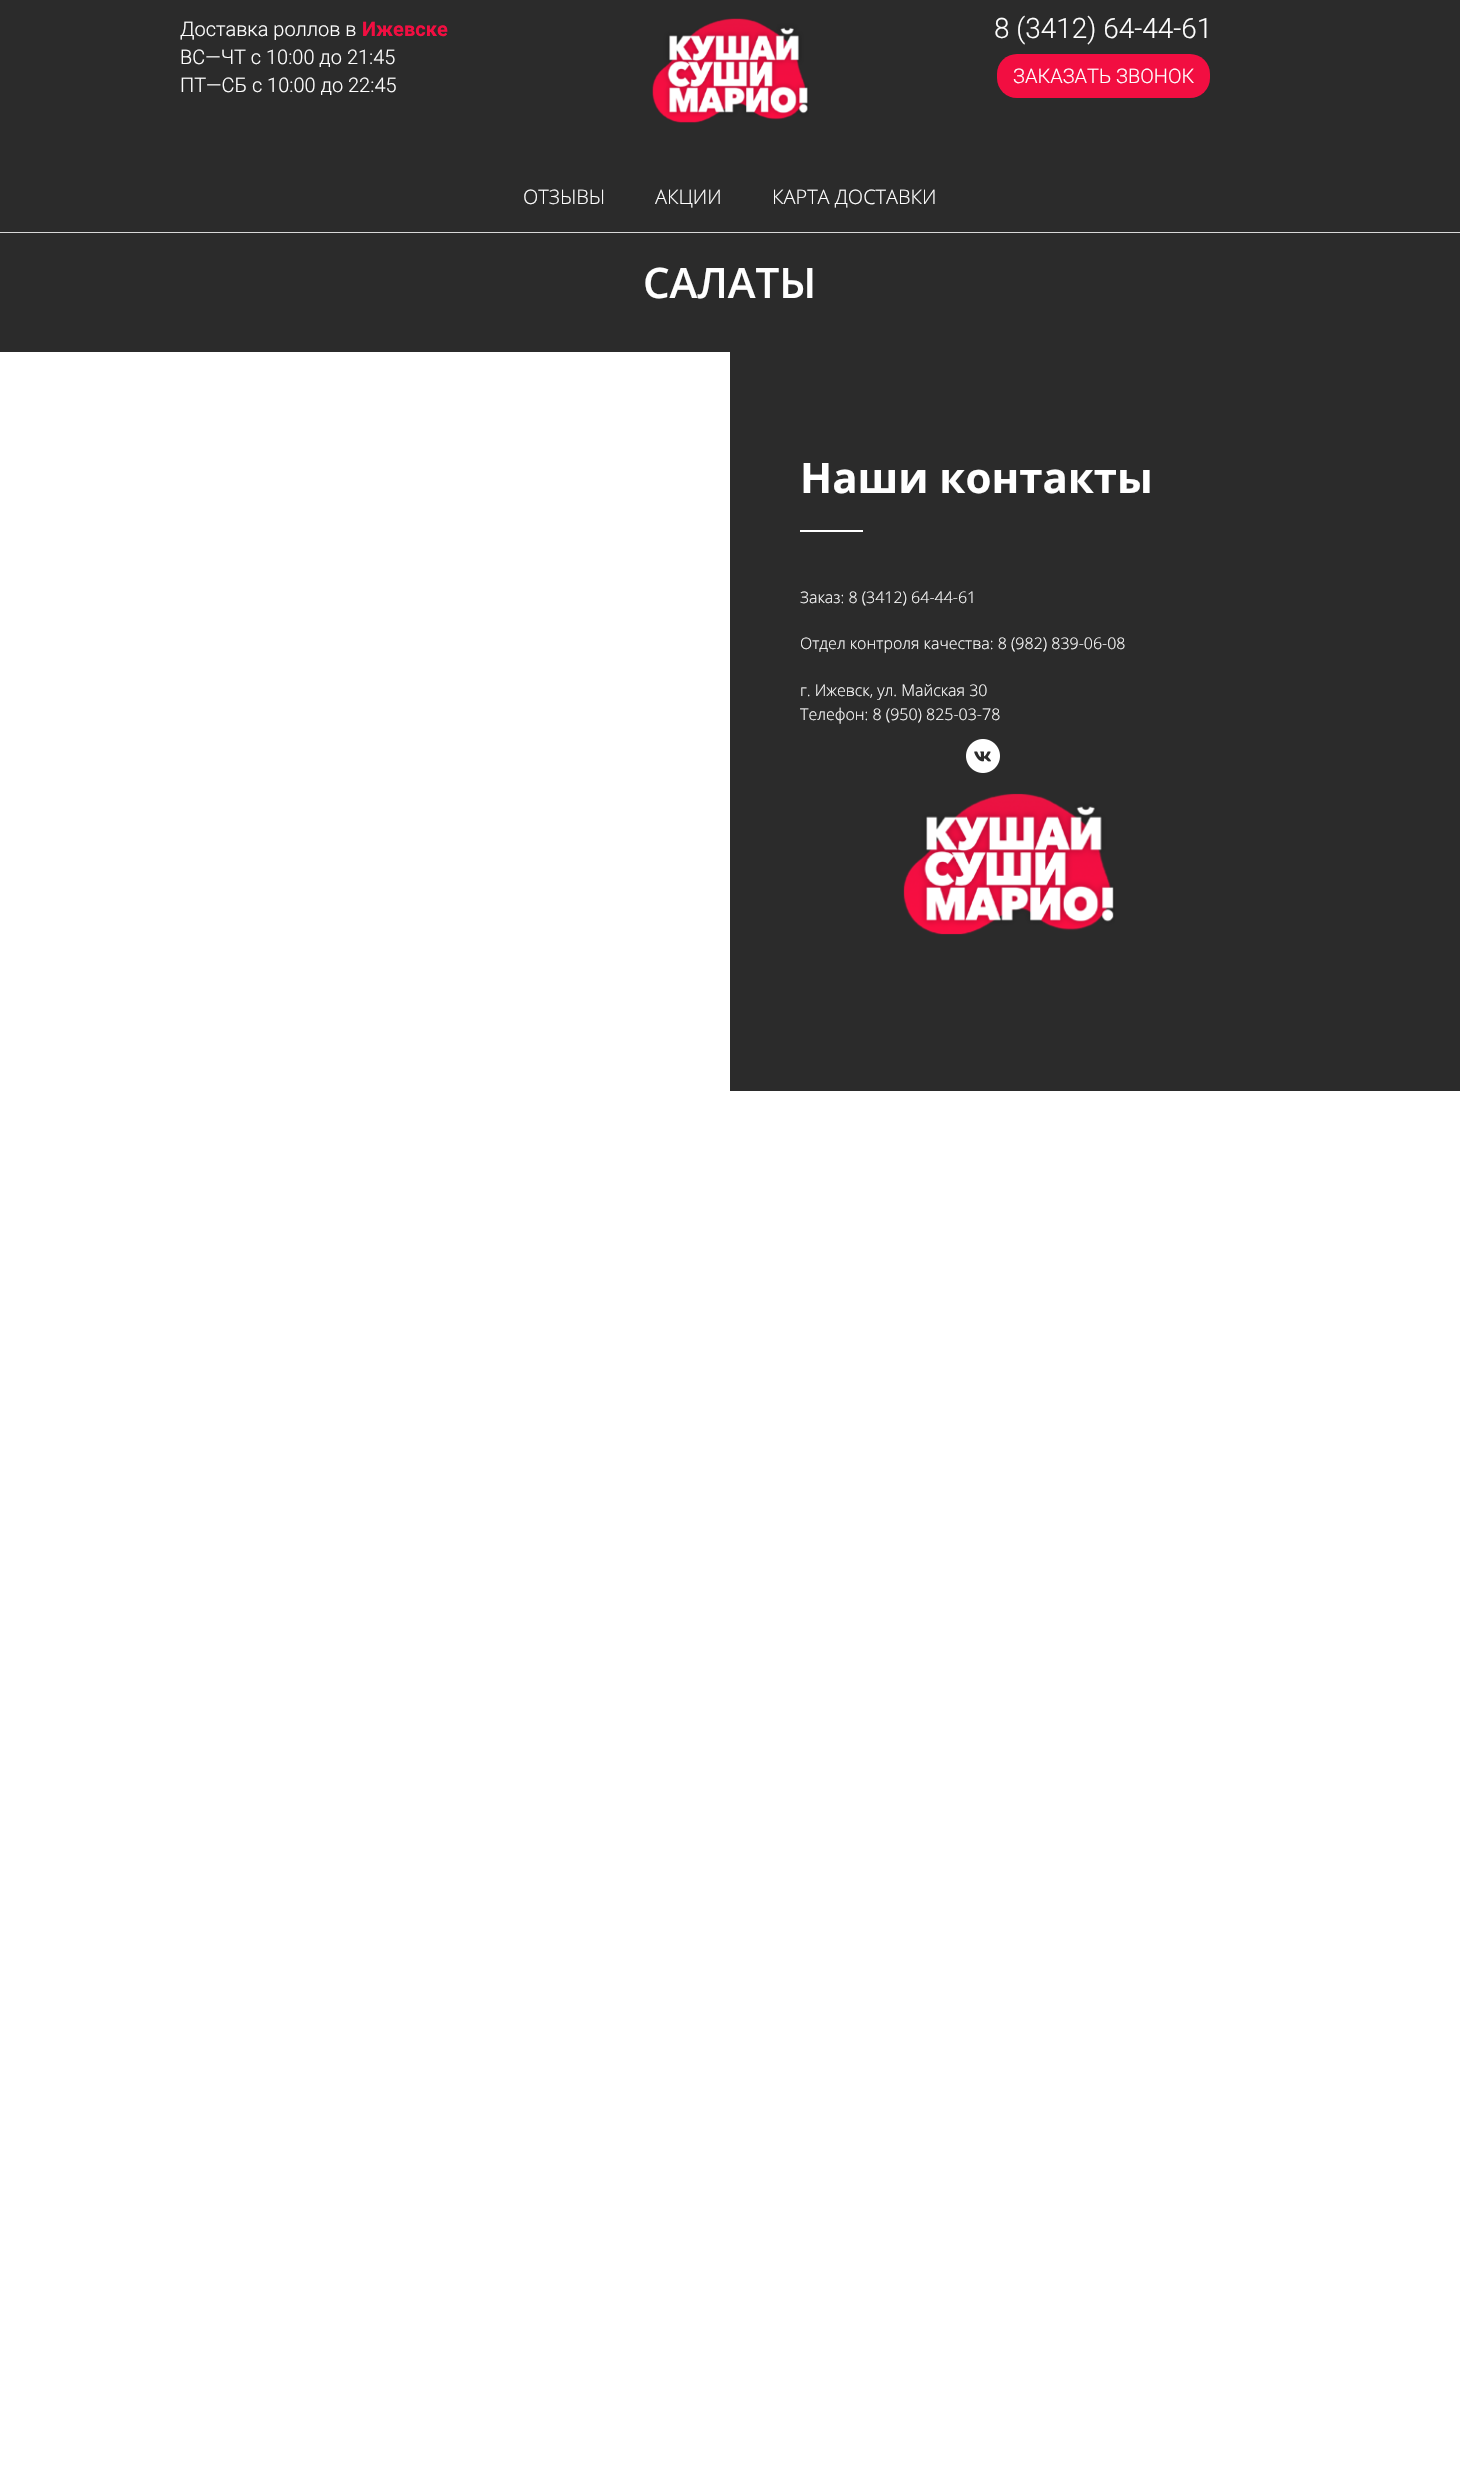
void draw(SkCanvas* canvas) {
	SkPaint paint;
	paint.setAntiAlias(true);
	canvas->clear(0xffffffff);
	paint.setColor(0xff2b2b2b);
	canvas->drawRect(SkRect::MakeXYWH(0, 0, 1460, 232), paint);
	SkFont f1(fontMgr->matchFamilyStyle("Roboto", SkFontStyle(300, SkFontStyle::kNormal_Width, SkFontStyle::kUpright_Slant)), 20);
	f1.setSubpixel(true);
	paint.setColor(0xffffffff);
	canvas->drawString("Доставка роллов в", 180, 36, f1, paint);
	SkFont f2(fontMgr->matchFamilyStyle("Roboto", SkFontStyle::Bold()), 20);
	f2.setSubpixel(true);
	paint.setColor(0xfff20e41);
	canvas->drawString("Ижевске", 362, 36, f2, paint);
	paint.setColor(0xffffffff);
	canvas->drawString("ВС—ЧТ с 10:00 до 21:45", 180, 64, f1, paint);
	canvas->drawString("ПТ—СБ с 10:00 до 22:45", 180, 92, f1, paint);
	canvas->drawImageRect(SkImages::DeferredFromEncodedData(SkData::MakeFromFileName("img1.png")), SkRect::MakeXYWH(652, 18, 157, 105), SkSamplingOptions());
	SkFont f3(fontMgr->matchFamilyStyle("Roboto", SkFontStyle(300, SkFontStyle::kNormal_Width, SkFontStyle::kUpright_Slant)), 28);
	f3.setSubpixel(true);
	canvas->drawString("8 (3412) 64-44-61", 994, 38, f3, paint);
	paint.setColor(0xfff20e41);
	canvas->drawRoundRect(SkRect::MakeXYWH(997, 54, 213, 44), 20, 20, paint);
	paint.setColor(0xffffffff);
	canvas->drawString("ЗАКАЗАТЬ ЗВОНОК", 1013, 83, f1, paint);
	paint.setColor(0xffd9d9d9);
	canvas->drawRect(SkRect::MakeXYWH(0, 232, 1460, 1), paint);
	SkFont f4(fontMgr->matchFamilyStyle("Open Sans", SkFontStyle(300, SkFontStyle::kNormal_Width, SkFontStyle::kUpright_Slant)), 20);
	f4.setSubpixel(true);
	paint.setColor(0xffffffff);
	canvas->drawString("ОТЗЫВЫ", 523, 204, f4, paint);
	canvas->drawString("АКЦИИ", 655, 204, f4, paint);
	canvas->drawString("КАРТА ДОСТАВКИ", 772, 204, f4, paint);
	paint.setColor(0xff2b2b2b);
	canvas->drawRect(SkRect::MakeXYWH(0, 233, 1460, 119), paint);
	SkFont f5(fontMgr->matchFamilyStyle("Open Sans", SkFontStyle(600, SkFontStyle::kNormal_Width, SkFontStyle::kUpright_Slant)), 42);
	f5.setSubpixel(true);
	paint.setColor(0xffffffff);
	canvas->drawString("САЛАТЫ", 643, 298, f5, paint);
	paint.setColor(0xff2b2b2b);
	canvas->drawRect(SkRect::MakeXYWH(730, 352, 730, 739), paint);
	SkFont f6(fontMgr->matchFamilyStyle("Open Sans", SkFontStyle::Bold()), 42);
	f6.setSubpixel(true);
	paint.setColor(0xffffffff);
	canvas->drawString("Наши контакты", 800, 493, f6, paint);
	canvas->drawRect(SkRect::MakeXYWH(800, 530, 63, 2), paint);
	SkFont f7(fontMgr->matchFamilyStyle("Open Sans", SkFontStyle(300, SkFontStyle::kNormal_Width, SkFontStyle::kUpright_Slant)), 16);
	f7.setSubpixel(true);
	canvas->drawString("Заказ: 8 (3412) 64-44-61", 800, 603, f7, paint);
	canvas->drawString("Отдел контроля качества: 8 (982) 839-06-08", 800, 649, f7, paint);
	canvas->drawString("г. Ижевск, ул. Майская 30", 800, 696, f7, paint);
	canvas->drawString("Телефон: 8 (950) 825-03-78", 800, 720, f7, paint);
	canvas->drawImageRect(SkImages::DeferredFromEncodedData(SkData::MakeFromFileName("img2.png")), SkRect::MakeXYWH(966, 739, 34, 34), SkSamplingOptions());
	canvas->drawImageRect(SkImages::DeferredFromEncodedData(SkData::MakeFromFileName("img3.png")), SkRect::MakeXYWH(903, 793, 212, 142), SkSamplingOptions());
}
